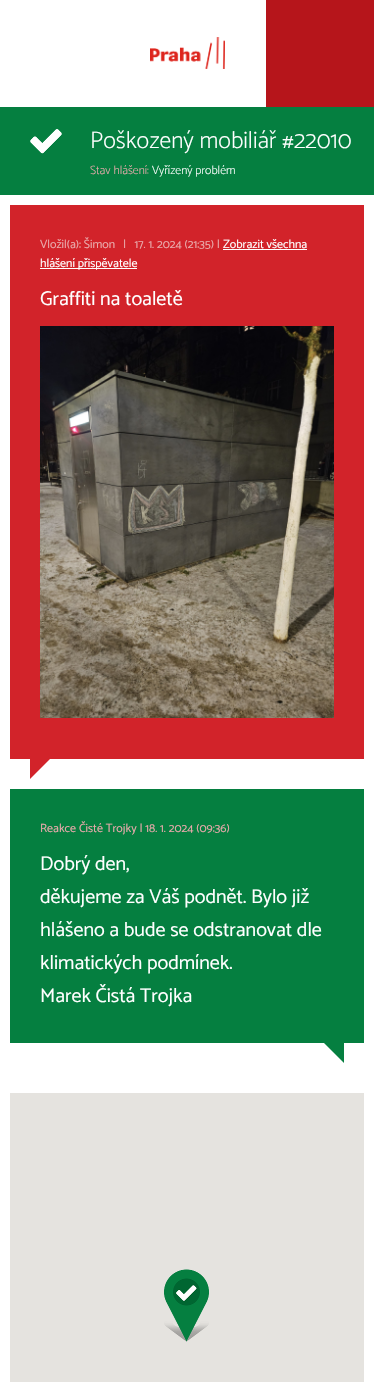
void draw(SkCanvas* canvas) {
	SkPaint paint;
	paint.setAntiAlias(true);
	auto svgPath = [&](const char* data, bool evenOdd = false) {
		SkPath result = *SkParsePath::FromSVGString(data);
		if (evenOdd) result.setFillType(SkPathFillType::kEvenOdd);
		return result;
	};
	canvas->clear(0xffffffff);
	canvas->drawImageRect(SkImages::DeferredFromEncodedData(SkData::MakeFromFileName("img1.png")), SkRect::MakeXYWH(150, 37, 75, 32), SkSamplingOptions());
	paint.setColor(0xffb6151b);
	canvas->drawRect(SkRect::MakeXYWH(266, 0, 108, 107), paint);
	paint.setColor(0xff057f40);
	canvas->drawRect(SkRect::MakeXYWH(0, 107, 374, 88), paint);
	canvas->drawImageRect(SkImages::DeferredFromEncodedData(SkData::MakeFromFileName("img2.png")), SkRect::MakeXYWH(30, 129, 32, 25), SkSamplingOptions());
	SkFont f1(fontMgr->matchFamilyStyle("Catamaran", SkFontStyle(200, SkFontStyle::kNormal_Width, SkFontStyle::kUpright_Slant)), 24);
	f1.setSubpixel(true);
	paint.setColor(0xffffffff);
	canvas->drawString("Poškozený mobiliář #22010", 90, 148, f1, paint);
	SkFont f2(fontMgr->matchFamilyStyle("Catamaran", SkFontStyle(200, SkFontStyle::kNormal_Width, SkFontStyle::kUpright_Slant)), 12);
	f2.setSubpixel(true);
	paint.setColor(0xffe9aaab);
	canvas->drawString("Stav hlášení:", 90, 174, f2, paint);
	paint.setColor(0xffffffff);
	canvas->drawString("Vyřízený problém", 152, 174, f2, paint);
	paint.setColor(0xffd2232a);
	canvas->drawRect(SkRect::MakeXYWH(10, 205, 354, 554), paint);
	SkFont f3(fontMgr->matchFamilyStyle("Catamaran", SkFontStyle::Normal()), 12);
	f3.setSubpixel(true);
	paint.setColor(0xffe9aaab);
	canvas->drawString("Vložil(a): Šimon", 40, 248, f3, paint);
	canvas->drawString("|   17. 1. 2024 (21:35) |", 123, 248, f3, paint);
	paint.setColor(0xffffffff);
	canvas->drawString("Zobrazit všechna", 223, 248, f3, paint);
	canvas->drawRect(SkRect::MakeXYWH(223, 249, 84, 1), paint);
	canvas->drawRect(SkRect::MakeXYWH(40, 268, 97, 1), paint);
	canvas->drawString("hlášení přispěvatele", 40, 267, f3, paint);
	SkFont f4(fontMgr->matchFamilyStyle("Catamaran", SkFontStyle::Normal()), 20);
	f4.setSubpixel(true);
	canvas->drawString("Graffiti na toaletě", 40, 305, f4, paint);
	canvas->drawImageRect(SkImages::DeferredFromEncodedData(SkData::MakeFromFileName("img3.png")), SkRect::MakeXYWH(40, 326, 294, 392), SkSamplingOptions());
	paint.setColor(0xffd2232a);
	canvas->drawPath(svgPath("M30 759H50L30 779Z"), paint);
	paint.setColor(0xff057f40);
	canvas->drawRect(SkRect::MakeXYWH(10, 789, 354, 254), paint);
	paint.setColor(0xffe9aaab);
	canvas->drawString("Reakce Čisté Trojky | 18. 1. 2024 (09:36)", 40, 832, f3, paint);
	paint.setColor(0xffffffff);
	canvas->drawString("Dobrý den,", 40, 870, f4, paint);
	canvas->drawString("děkujeme za Váš podnět. Bylo již", 40, 903, f4, paint);
	canvas->drawString("hlášeno a bude se odstranovat dle", 40, 936, f4, paint);
	canvas->drawString("klimatických podmínek.", 40, 969, f4, paint);
	canvas->drawString("Marek Čistá Trojka", 40, 1002, f4, paint);
	paint.setColor(0xff057f40);
	canvas->drawPath(svgPath("M344 1043V1063L324 1043Z"), paint);
	paint.setColor(0xffe5e3df);
	canvas->drawRect(SkRect::MakeXYWH(10, 1093, 354, 289), paint);
	canvas->drawImageRect(SkImages::DeferredFromEncodedData(SkData::MakeFromFileName("img4.png")), SkRect::MakeXYWH(164, 1269, 45, 73), SkSamplingOptions());
}
